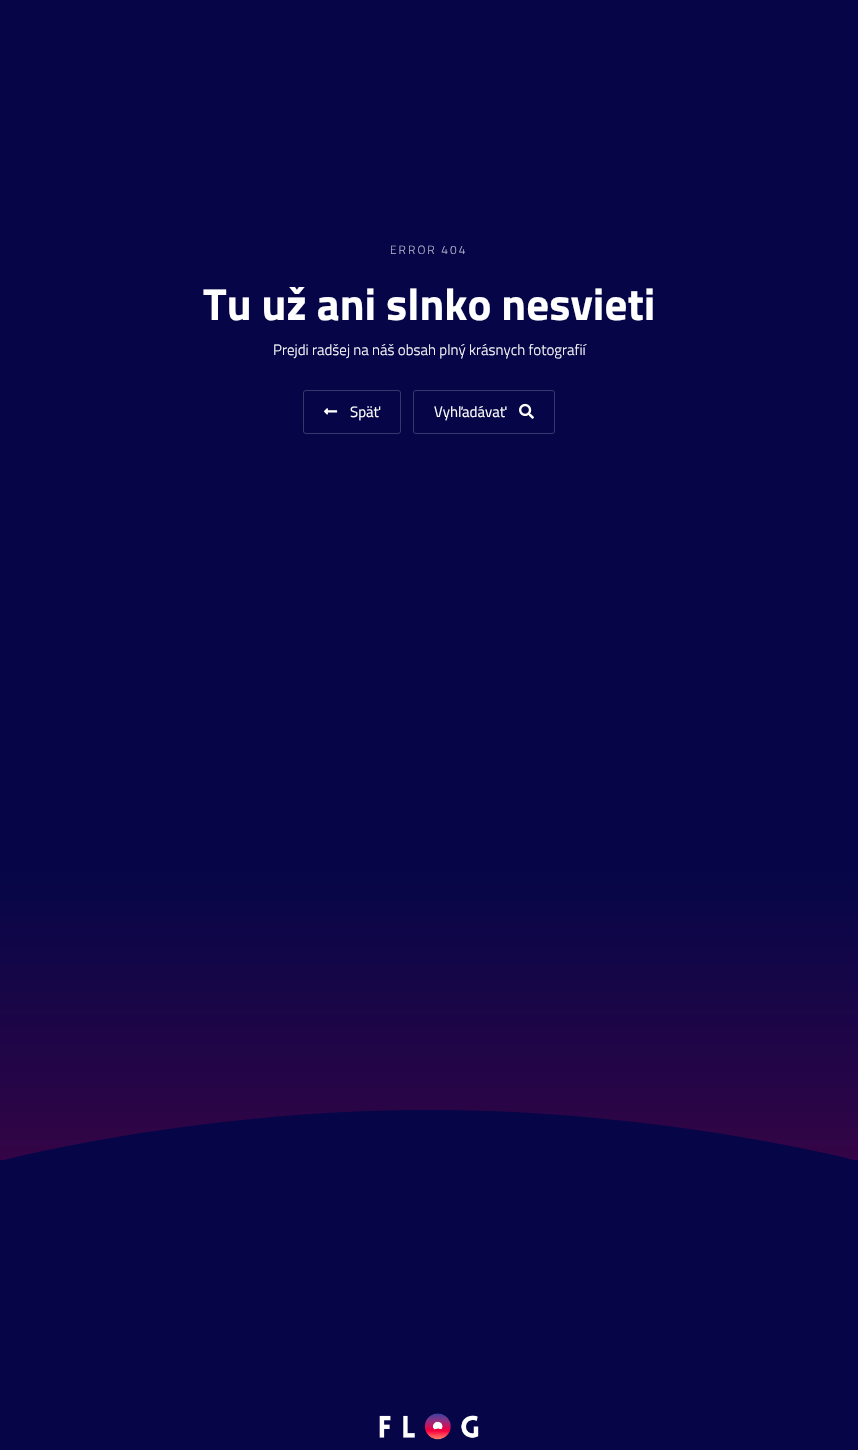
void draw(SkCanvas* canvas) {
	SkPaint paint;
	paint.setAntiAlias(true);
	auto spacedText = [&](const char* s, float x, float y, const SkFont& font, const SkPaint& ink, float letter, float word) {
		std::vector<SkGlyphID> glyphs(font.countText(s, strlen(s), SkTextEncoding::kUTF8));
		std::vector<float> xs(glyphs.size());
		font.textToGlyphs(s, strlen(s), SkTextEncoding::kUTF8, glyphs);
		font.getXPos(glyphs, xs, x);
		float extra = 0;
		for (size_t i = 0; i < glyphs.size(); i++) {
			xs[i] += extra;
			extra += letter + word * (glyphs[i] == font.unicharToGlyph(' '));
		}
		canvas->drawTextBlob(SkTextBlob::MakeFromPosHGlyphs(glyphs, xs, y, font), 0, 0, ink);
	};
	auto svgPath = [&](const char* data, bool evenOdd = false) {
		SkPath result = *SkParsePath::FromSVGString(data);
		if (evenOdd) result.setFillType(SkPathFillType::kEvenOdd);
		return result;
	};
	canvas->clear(0xffffffff);
	{
		const SkColor colors[] = {0xff522c66, 0xffee0040};
		const float stops[] = {0, 1};
		const SkPoint ends[] = {{429, 0}, {429, 1160}};
		paint.setShader(SkGradientShader::MakeLinear(ends, colors, stops, 2, SkTileMode::kClamp));
		paint.setAlpha(255);
	}
	canvas->drawRect(SkRect::MakeXYWH(0, 879, 858, 281), paint);
	{
		const SkColor colors[] = {0xff050547, 0xff050547, 0x00050547};
		const float stops[] = {0, 0.5, 1};
		const SkPoint ends[] = {{429, -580}, {429, 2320}};
		paint.setShader(SkGradientShader::MakeLinear(ends, colors, stops, 3, SkTileMode::kClamp));
		paint.setAlpha(255);
	}
	canvas->drawRect(SkRect::MakeXYWH(0, 0, 858, 1160), paint);
	SkFont f1(fontMgr->matchFamilyStyle("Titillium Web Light", SkFontStyle(300, SkFontStyle::kNormal_Width, SkFontStyle::kUpright_Slant)), 12);
	f1.setSubpixel(true);
	paint.setShader(nullptr);
	paint.setColor(0xffb4b4c8);
	spacedText("ERROR 404", 390, 254, f1, paint, 2, 0);
	SkFont f2(fontMgr->matchFamilyStyle("Titillium Web", SkFontStyle::Bold()), 45);
	f2.setSubpixel(true);
	paint.setColor(0xffffffff);
	canvas->drawString("Tu už ani slnko nesvieti", 203, 320, f2, paint);
	SkFont f3(fontMgr->matchFamilyStyle("Titillium Web Light", SkFontStyle(300, SkFontStyle::kNormal_Width, SkFontStyle::kUpright_Slant)), 15);
	f3.setSubpixel(true);
	canvas->drawString("Prejdi radšej na náš obsah plný krásnych fotografií", 273, 355, f3, paint);
	paint.setStroke(true);
	paint.setStrokeWidth(1);
	paint.setColor(0xff37376c);
	canvas->drawRoundRect(SkRect::MakeXYWH(303.5, 390.5, 97, 43), 2.5, 2.5, paint);
	canvas->drawImageRect(SkImages::DeferredFromEncodedData(SkData::MakeFromFileName("img1.png")), SkRect::MakeXYWH(324, 408, 14, 7), SkSamplingOptions());
	SkFont f4(fontMgr->matchFamilyStyle("Titillium Web", SkFontStyle::Normal()), 15);
	f4.setSubpixel(true);
	paint.setStroke(false);
	paint.setColor(0xffffffff);
	canvas->drawString("Späť", 350, 417, f4, paint);
	paint.setStroke(true);
	paint.setColor(0xff37376c);
	canvas->drawRoundRect(SkRect::MakeXYWH(413.5, 390.5, 141, 43), 2.5, 2.5, paint);
	paint.setStroke(false);
	paint.setColor(0xffffffff);
	canvas->drawString("Vyhľadávať", 434, 417, f4, paint);
	canvas->drawImageRect(SkImages::DeferredFromEncodedData(SkData::MakeFromFileName("img2.png")), SkRect::MakeXYWH(519, 403, 15, 16), SkSamplingOptions());
	canvas->save();
	canvas->clipRect(SkRect::MakeXYWH(0, 1110, 858, 50));
	paint.setColor(0xff050547);
	canvas->drawPath(svgPath("M858 1161C858 1161 666 1110 429 1110C192 1110 0 1161 0 1161H853"), paint);
	canvas->restore();
	canvas->drawRect(SkRect::MakeXYWH(0, 1160, 858, 290), paint);
	canvas->drawImageRect(SkImages::DeferredFromEncodedData(SkData::MakeFromFileName("img3.png")), SkRect::MakeXYWH(379, 1413, 100, 27), SkSamplingOptions());
}
